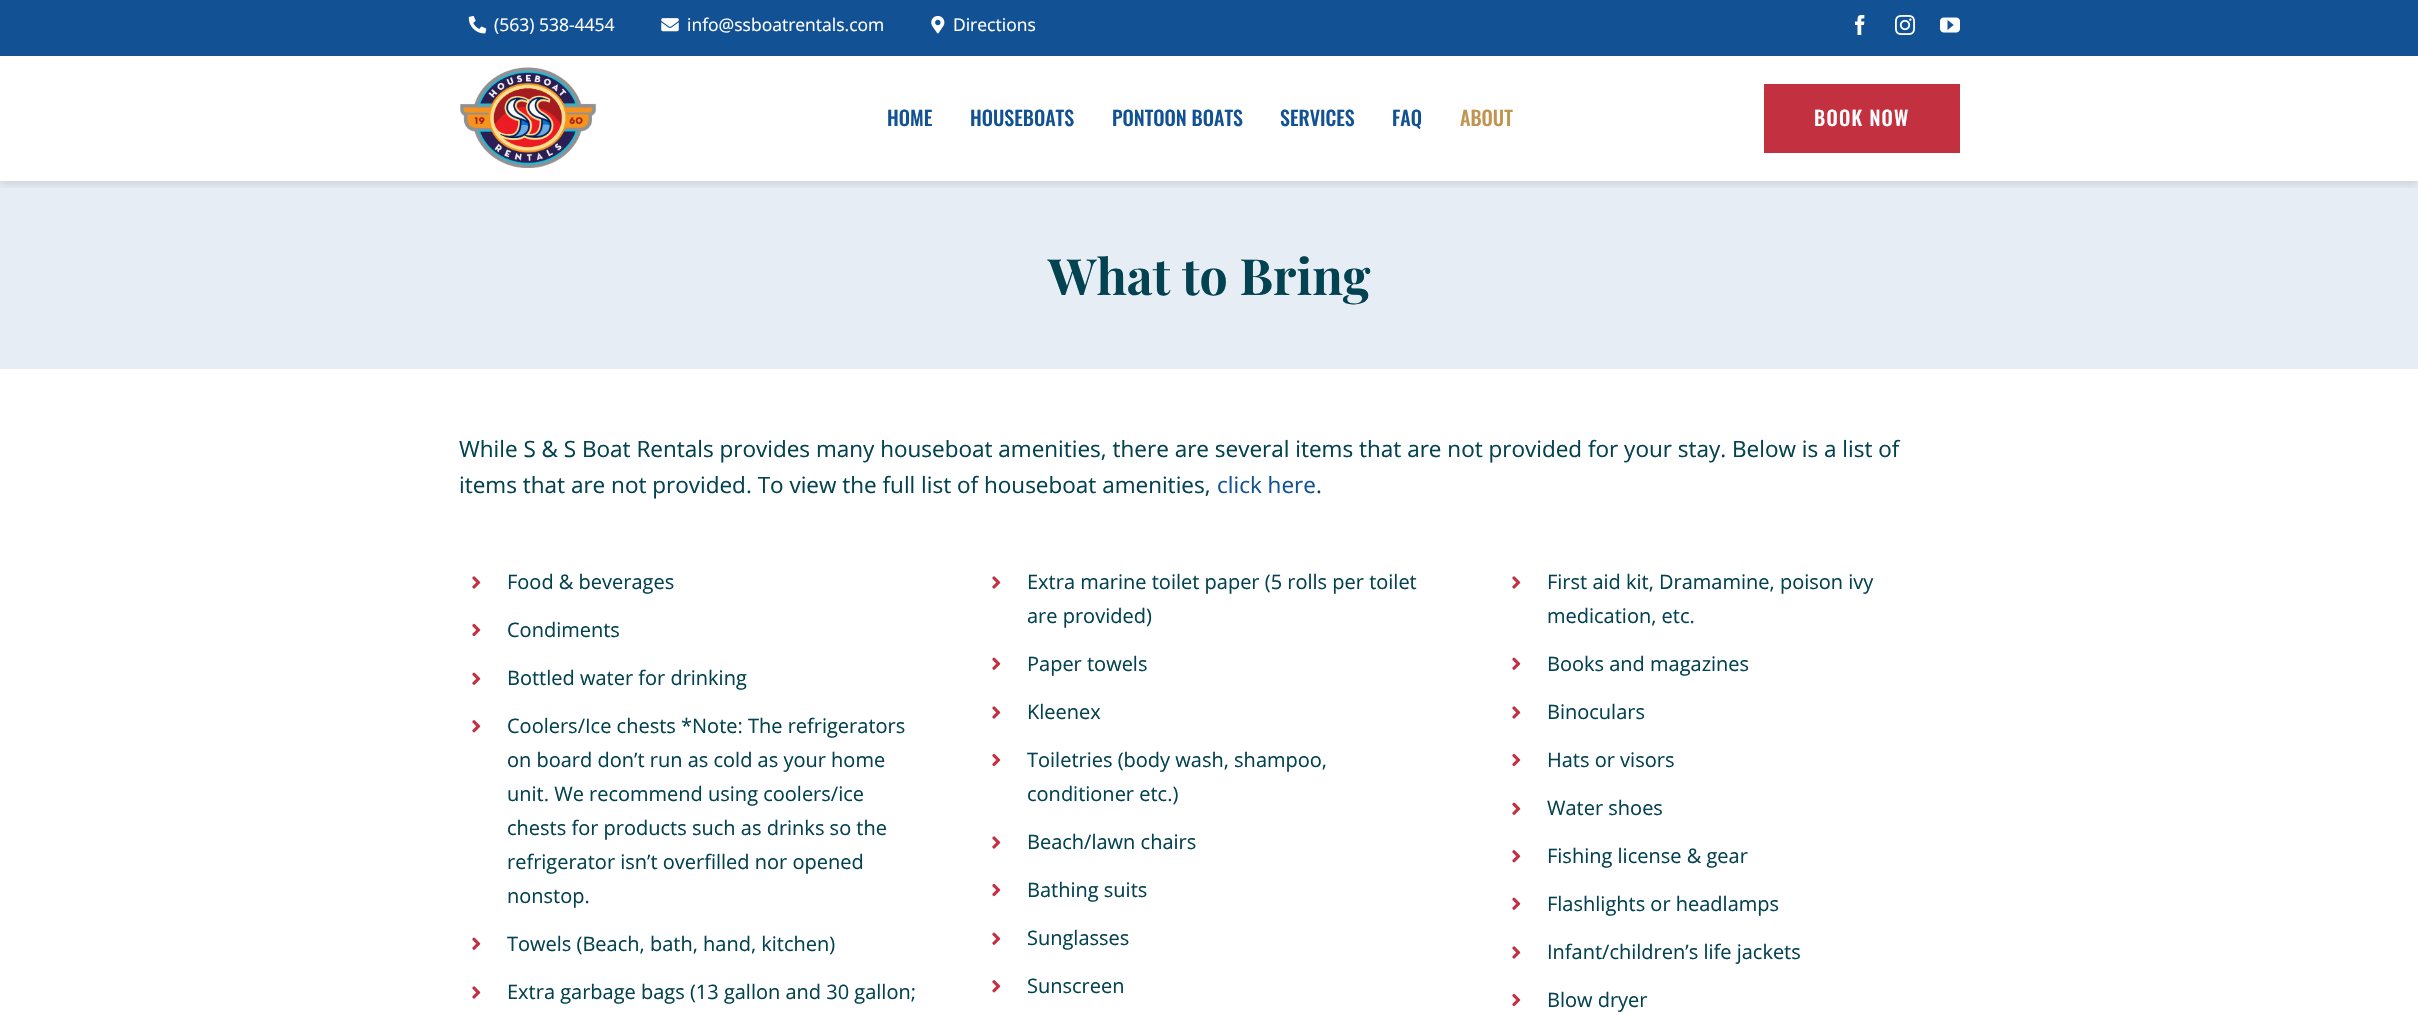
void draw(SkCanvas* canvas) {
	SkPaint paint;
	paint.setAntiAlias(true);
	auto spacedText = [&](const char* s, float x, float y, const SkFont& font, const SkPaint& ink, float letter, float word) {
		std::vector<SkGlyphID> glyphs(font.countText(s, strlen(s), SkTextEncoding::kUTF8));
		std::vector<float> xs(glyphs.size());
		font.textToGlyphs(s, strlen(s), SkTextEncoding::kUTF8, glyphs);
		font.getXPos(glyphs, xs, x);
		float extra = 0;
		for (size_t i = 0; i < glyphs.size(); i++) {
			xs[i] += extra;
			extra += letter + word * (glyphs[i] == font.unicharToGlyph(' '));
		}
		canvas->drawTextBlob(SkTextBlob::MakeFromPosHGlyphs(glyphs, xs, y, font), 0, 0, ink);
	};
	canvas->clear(0xffffffff);
	paint.setColor(0xffe7edf4);
	canvas->drawRect(SkRect::MakeXYWH(0, 181, 2418, 188), paint);
	canvas->save();
	canvas->clipRect(SkRect::MakeXYWH(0, 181, 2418, 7));
	paint.setColor(0x1a000000);
	paint.setMaskFilter(SkMaskFilter::MakeBlur(kNormal_SkBlurStyle, 4));
	canvas->drawRect(SkRect::MakeXYWH(0, 60, 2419, 125), paint);
	paint.setMaskFilter(nullptr);
	canvas->restore();
	paint.setColor(0xff125294);
	canvas->drawRect(SkRect::MakeXYWH(0, 0, 2418, 56), paint);
	canvas->drawImageRect(SkImages::DeferredFromEncodedData(SkData::MakeFromFileName("img1.png")), SkRect::MakeXYWH(468, 16, 19, 18), SkSamplingOptions());
	SkFont f1(fontMgr->matchFamilyStyle("Open Sans", SkFontStyle::Normal()), 17.5);
	f1.setSubpixel(true);
	paint.setColor(0xffffffff);
	canvas->drawString("(563) 538-4454", 494, 31, f1, paint);
	canvas->drawImageRect(SkImages::DeferredFromEncodedData(SkData::MakeFromFileName("img2.png")), SkRect::MakeXYWH(661, 18, 18, 14), SkSamplingOptions());
	canvas->drawString("info@ssboatrentals.com", 687, 31, f1, paint);
	canvas->drawImageRect(SkImages::DeferredFromEncodedData(SkData::MakeFromFileName("img3.png")), SkRect::MakeXYWH(931, 15, 14, 19), SkSamplingOptions());
	canvas->drawString("Directions", 953, 31, f1, paint);
	canvas->drawImageRect(SkImages::DeferredFromEncodedData(SkData::MakeFromFileName("img4.png")), SkRect::MakeXYWH(1855, 15, 10, 20), SkSamplingOptions());
	canvas->drawImageRect(SkImages::DeferredFromEncodedData(SkData::MakeFromFileName("img5.png")), SkRect::MakeXYWH(1895, 15, 20, 20), SkSamplingOptions());
	canvas->drawImageRect(SkImages::DeferredFromEncodedData(SkData::MakeFromFileName("img6.png")), SkRect::MakeXYWH(1940, 17, 20, 16), SkSamplingOptions());
	canvas->drawImageRect(SkImages::DeferredFromEncodedData(SkData::MakeFromFileName("img7.png")), SkRect::MakeXYWH(460, 67, 137, 101), SkSamplingOptions());
	SkFont f2(fontMgr->matchFamilyStyle("Oswald", SkFontStyle(500, SkFontStyle::kNormal_Width, SkFontStyle::kUpright_Slant)), 20);
	f2.setSubpixel(true);
	paint.setColor(0xff125294);
	canvas->drawString("HOME", 887, 126, f2, paint);
	canvas->drawString("HOUSEBOATS", 970, 126, f2, paint);
	canvas->drawString("PONTOON BOATS", 1112, 126, f2, paint);
	canvas->drawString("SERVICES", 1280, 126, f2, paint);
	canvas->drawString("FAQ", 1392, 126, f2, paint);
	paint.setColor(0xffc09551);
	canvas->drawString("ABOUT", 1460, 126, f2, paint);
	paint.setColor(0xffc33040);
	canvas->drawRect(SkRect::MakeXYWH(1764, 84, 196, 69), paint);
	paint.setColor(0xffffffff);
	spacedText("BOOK NOW", 1814, 126, f2, paint, 1.25, 0);
	SkFont f3(fontMgr->matchFamilyStyle("Playfair Display", SkFontStyle::Bold()), 50);
	f3.setSubpixel(true);
	paint.setColor(0xff034250);
	canvas->drawString("What to Bring", 1048, 295, f3, paint);
	SkFont f4(fontMgr->matchFamilyStyle("Open Sans", SkFontStyle::Normal()), 22.5);
	f4.setSubpixel(true);
	canvas->drawString("While S & S Boat Rentals provides many houseboat amenities, there are several items that are not provided for your stay. Below is a list of", 459, 457, f4, paint);
	canvas->drawString("items that are not provided. To view the full list of houseboat amenities,", 459, 493, f4, paint);
	paint.setColor(0xff125294);
	canvas->drawString("click here", 1217, 493, f4, paint);
	paint.setColor(0xff034250);
	canvas->drawString(".", 1316, 493, f4, paint);
	canvas->drawImageRect(SkImages::DeferredFromEncodedData(SkData::MakeFromFileName("img8.png")), SkRect::MakeXYWH(472, 576, 9, 13), SkSamplingOptions());
	SkFont f5(fontMgr->matchFamilyStyle("Open Sans", SkFontStyle::Normal()), 20);
	f5.setSubpixel(true);
	canvas->drawString("Food & beverages", 507, 589, f5, paint);
	canvas->drawImageRect(SkImages::DeferredFromEncodedData(SkData::MakeFromFileName("img9.png")), SkRect::MakeXYWH(472, 623, 9, 14), SkSamplingOptions());
	canvas->drawString("Condiments", 507, 637, f5, paint);
	canvas->drawImageRect(SkImages::DeferredFromEncodedData(SkData::MakeFromFileName("img10.png")), SkRect::MakeXYWH(472, 672, 9, 13), SkSamplingOptions());
	canvas->drawString("Bottled water for drinking", 507, 685, f5, paint);
	canvas->drawImageRect(SkImages::DeferredFromEncodedData(SkData::MakeFromFileName("img11.png")), SkRect::MakeXYWH(472, 720, 9, 13), SkSamplingOptions());
	canvas->drawString("Coolers/Ice chests *Note: The refrigerators", 507, 733, f5, paint);
	canvas->drawString("on board don’t run as cold as your home", 507, 767, f5, paint);
	canvas->drawString("unit. We recommend using coolers/ice", 507, 801, f5, paint);
	canvas->drawString("chests for products such as drinks so the", 507, 835, f5, paint);
	canvas->drawString("refrigerator isn’t overfilled nor opened", 507, 869, f5, paint);
	canvas->drawString("nonstop.", 507, 903, f5, paint);
	canvas->drawImageRect(SkImages::DeferredFromEncodedData(SkData::MakeFromFileName("img10.png")), SkRect::MakeXYWH(472, 937, 9, 13), SkSamplingOptions());
	canvas->drawString("Towels (Beach, bath, hand, kitchen)", 507, 951, f5, paint);
	canvas->drawImageRect(SkImages::DeferredFromEncodedData(SkData::MakeFromFileName("img8.png")), SkRect::MakeXYWH(472, 986, 9, 13), SkSamplingOptions());
	canvas->drawString("Extra garbage bags (13 gallon and 30 gallon;", 507, 999, f5, paint);
	canvas->drawImageRect(SkImages::DeferredFromEncodedData(SkData::MakeFromFileName("img8.png")), SkRect::MakeXYWH(992, 576, 9, 13), SkSamplingOptions());
	canvas->drawString("Extra marine toilet paper (5 rolls per toilet", 1027, 589, f5, paint);
	canvas->drawString("are provided)", 1027, 623, f5, paint);
	canvas->drawImageRect(SkImages::DeferredFromEncodedData(SkData::MakeFromFileName("img10.png")), SkRect::MakeXYWH(992, 657, 9, 13), SkSamplingOptions());
	canvas->drawString("Paper towels", 1027, 671, f5, paint);
	canvas->drawImageRect(SkImages::DeferredFromEncodedData(SkData::MakeFromFileName("img8.png")), SkRect::MakeXYWH(992, 706, 9, 13), SkSamplingOptions());
	canvas->drawString("Kleenex", 1027, 719, f5, paint);
	canvas->drawImageRect(SkImages::DeferredFromEncodedData(SkData::MakeFromFileName("img9.png")), SkRect::MakeXYWH(992, 753, 9, 14), SkSamplingOptions());
	canvas->drawString("Toiletries (body wash, shampoo,", 1027, 767, f5, paint);
	canvas->drawString("conditioner etc.)", 1027, 801, f5, paint);
	canvas->drawImageRect(SkImages::DeferredFromEncodedData(SkData::MakeFromFileName("img8.png")), SkRect::MakeXYWH(992, 836, 9, 13), SkSamplingOptions());
	canvas->drawString("Beach/lawn chairs", 1027, 849, f5, paint);
	canvas->drawImageRect(SkImages::DeferredFromEncodedData(SkData::MakeFromFileName("img9.png")), SkRect::MakeXYWH(992, 883, 9, 14), SkSamplingOptions());
	canvas->drawString("Bathing suits", 1027, 897, f5, paint);
	canvas->drawImageRect(SkImages::DeferredFromEncodedData(SkData::MakeFromFileName("img10.png")), SkRect::MakeXYWH(992, 932, 9, 13), SkSamplingOptions());
	canvas->drawString("Sunglasses", 1027, 945, f5, paint);
	canvas->drawImageRect(SkImages::DeferredFromEncodedData(SkData::MakeFromFileName("img11.png")), SkRect::MakeXYWH(992, 980, 9, 13), SkSamplingOptions());
	canvas->drawString("Sunscreen", 1027, 993, f5, paint);
	canvas->drawImageRect(SkImages::DeferredFromEncodedData(SkData::MakeFromFileName("img8.png")), SkRect::MakeXYWH(1512, 576, 9, 13), SkSamplingOptions());
	canvas->drawString("First aid kit, Dramamine, poison ivy", 1547, 589, f5, paint);
	canvas->drawString("medication, etc.", 1547, 623, f5, paint);
	canvas->drawImageRect(SkImages::DeferredFromEncodedData(SkData::MakeFromFileName("img10.png")), SkRect::MakeXYWH(1512, 657, 9, 13), SkSamplingOptions());
	canvas->drawString("Books and magazines", 1547, 671, f5, paint);
	canvas->drawImageRect(SkImages::DeferredFromEncodedData(SkData::MakeFromFileName("img8.png")), SkRect::MakeXYWH(1512, 706, 9, 13), SkSamplingOptions());
	canvas->drawString("Binoculars", 1547, 719, f5, paint);
	canvas->drawImageRect(SkImages::DeferredFromEncodedData(SkData::MakeFromFileName("img9.png")), SkRect::MakeXYWH(1512, 753, 9, 14), SkSamplingOptions());
	canvas->drawString("Hats or visors", 1547, 767, f5, paint);
	canvas->drawImageRect(SkImages::DeferredFromEncodedData(SkData::MakeFromFileName("img10.png")), SkRect::MakeXYWH(1512, 802, 9, 13), SkSamplingOptions());
	canvas->drawString("Water shoes", 1547, 815, f5, paint);
	canvas->drawImageRect(SkImages::DeferredFromEncodedData(SkData::MakeFromFileName("img11.png")), SkRect::MakeXYWH(1512, 850, 9, 13), SkSamplingOptions());
	canvas->drawString("Fishing license & gear", 1547, 863, f5, paint);
	canvas->drawImageRect(SkImages::DeferredFromEncodedData(SkData::MakeFromFileName("img10.png")), SkRect::MakeXYWH(1512, 897, 9, 13), SkSamplingOptions());
	canvas->drawString("Flashlights or headlamps", 1547, 911, f5, paint);
	canvas->drawImageRect(SkImages::DeferredFromEncodedData(SkData::MakeFromFileName("img8.png")), SkRect::MakeXYWH(1512, 946, 9, 13), SkSamplingOptions());
	canvas->drawString("Infant/children’s life jackets", 1547, 959, f5, paint);
	canvas->drawImageRect(SkImages::DeferredFromEncodedData(SkData::MakeFromFileName("img9.png")), SkRect::MakeXYWH(1512, 993, 9, 14), SkSamplingOptions());
	canvas->drawString("Blow dryer", 1547, 1007, f5, paint);
}
